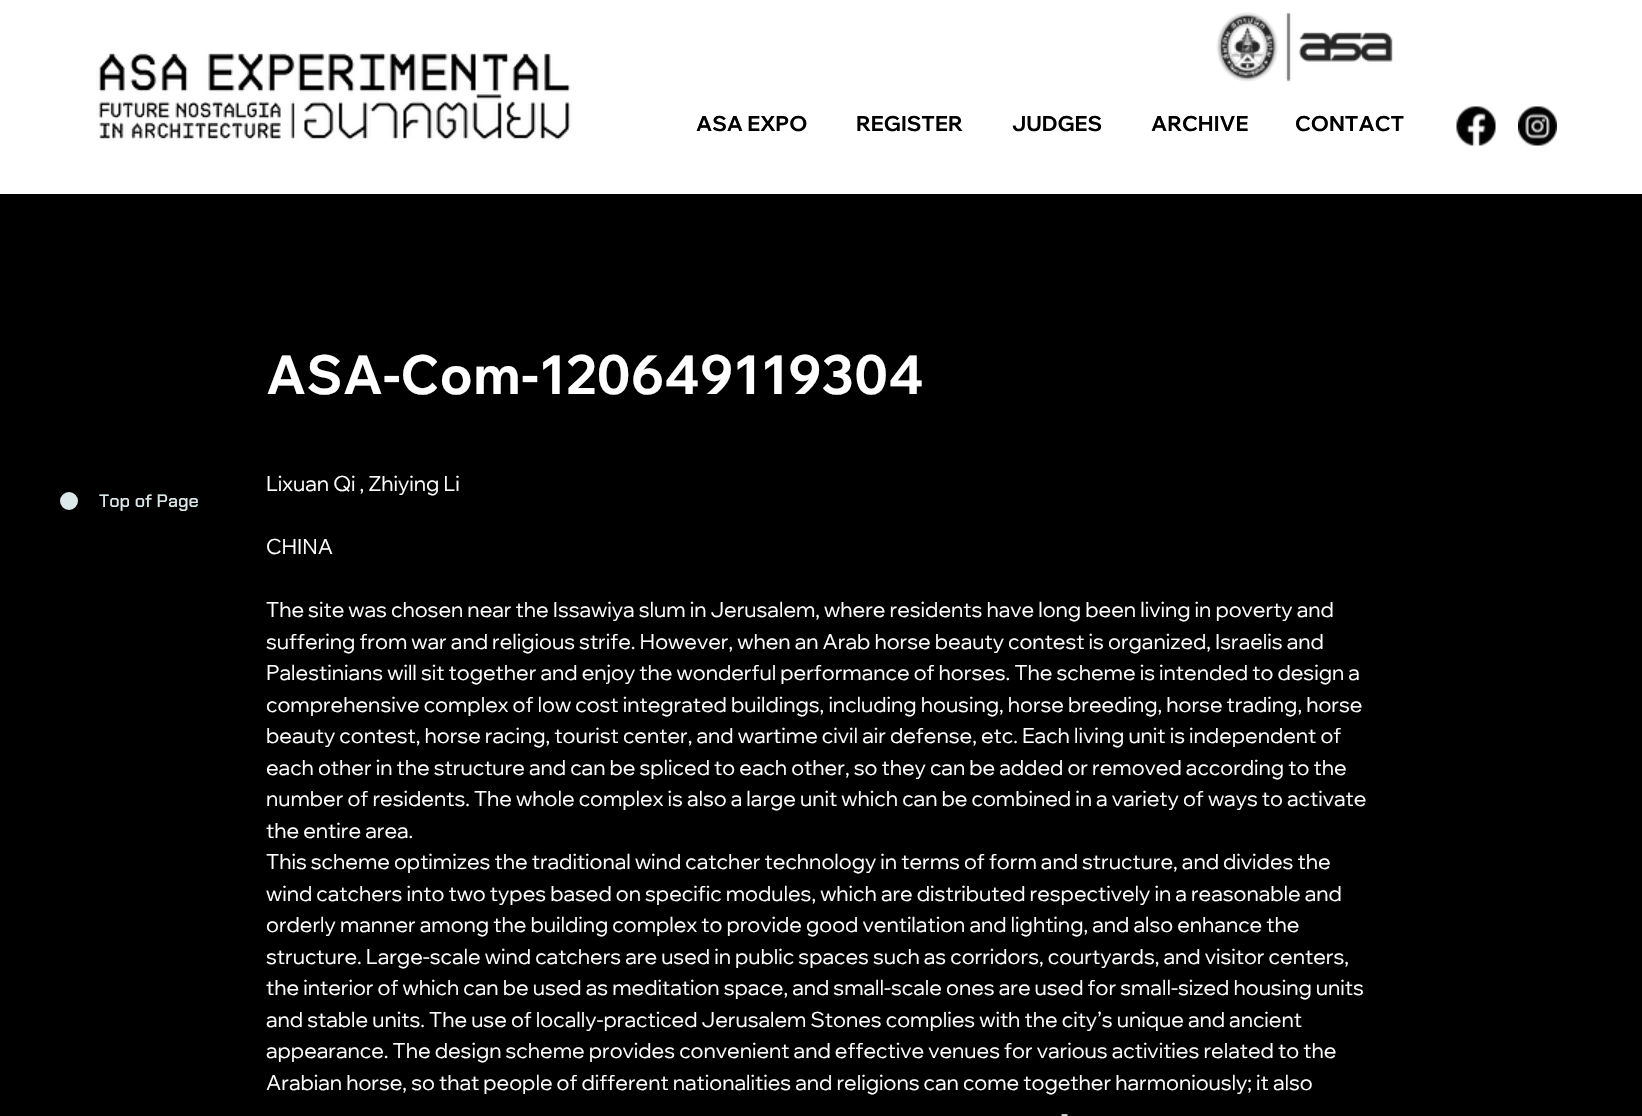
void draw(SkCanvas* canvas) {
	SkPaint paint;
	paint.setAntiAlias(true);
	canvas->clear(0xff000000);
	paint.setColor(0xffffffff);
	canvas->drawRect(SkRect::MakeXYWH(0, 0, 1642, 194), paint);
	canvas->drawImageRect(SkImages::DeferredFromEncodedData(SkData::MakeFromFileName("img1.png")), SkRect::MakeXYWH(96, 53, 477, 89), SkSamplingOptions());
	canvas->drawImageRect(SkImages::DeferredFromEncodedData(SkData::MakeFromFileName("img2.png")), SkRect::MakeXYWH(1216, 12, 177, 70), SkSamplingOptions());
	canvas->drawImageRect(SkImages::DeferredFromEncodedData(SkData::MakeFromFileName("img3.png")), SkRect::MakeXYWH(1456, 106, 40, 40), SkSamplingOptions());
	canvas->drawImageRect(SkImages::DeferredFromEncodedData(SkData::MakeFromFileName("img4.png")), SkRect::MakeXYWH(1518, 106, 39, 40), SkSamplingOptions());
	SkFont f1(fontMgr->matchFamilyStyle("Wix Madefor Display", SkFontStyle::Bold()), 21);
	f1.setSubpixel(true);
	paint.setColor(0xff000000);
	canvas->drawString("ASA EXPO", 696, 131, f1, paint);
	canvas->drawString("REGISTER", 856, 131, f1, paint);
	canvas->drawString("JUDGES", 1012, 131, f1, paint);
	canvas->drawString("ARCHIVE", 1151, 131, f1, paint);
	canvas->drawString("CONTACT", 1295, 131, f1, paint);
	paint.setColor(0xffdde8eb);
	canvas->drawCircle(69, 501, 7.5, paint);
	paint.setStroke(true);
	paint.setStrokeWidth(3);
	canvas->drawCircle(69, 501, 7.5, paint);
	SkFont f2(fontMgr->matchFamilyStyle("Chakra Petch", SkFontStyle(500, SkFontStyle::kNormal_Width, SkFontStyle::kUpright_Slant)), 18);
	f2.setSubpixel(true);
	paint.setStroke(false);
	canvas->drawString("Top of Page", 99, 507, f2, paint);
	SkFont f3(fontMgr->matchFamilyStyle("Wix Madefor Text", SkFontStyle::Bold()), 54);
	f3.setSubpixel(true);
	paint.setColor(0xffffffff);
	canvas->drawString("ASA-Com-120649119304", 266, 394, f3, paint);
	SkFont f4(fontMgr->matchFamilyStyle("Wix Madefor Display", SkFontStyle::Normal()), 21);
	f4.setSubpixel(true);
	canvas->drawString("Lixuan Qi , Zhiying Li", 266, 491, f4, paint);
	canvas->drawString("CHINA", 266, 554, f4, paint);
	canvas->drawString("The site was chosen near the Issawiya slum in Jerusalem, where residents have long been living in poverty and", 266, 617, f4, paint);
	canvas->drawString("suffering from war and religious strife. However, when an Arab horse beauty contest is organized, Israelis and", 266, 649, f4, paint);
	canvas->drawString("Palestinians will sit together and enjoy the wonderful performance of horses. The scheme is intended to design a", 266, 680, f4, paint);
	canvas->drawString("comprehensive complex of low cost integrated buildings, including housing, horse breeding, horse trading, horse", 266, 712, f4, paint);
	canvas->drawString("beauty contest, horse racing, tourist center, and wartime civil air defense, etc. Each living unit is independent of", 266, 743, f4, paint);
	canvas->drawString("each other in the structure and can be spliced to each other, so they can be added or removed according to the", 266, 775, f4, paint);
	canvas->drawString("number of residents. The whole complex is also a large unit which can be combined in a variety of ways to activate", 266, 806, f4, paint);
	canvas->drawString("the entire area.", 266, 838, f4, paint);
	canvas->drawString("This scheme optimizes the traditional wind catcher technology in terms of form and structure, and divides the", 266, 869, f4, paint);
	canvas->drawString("wind catchers into two types based on specific modules, which are distributed respectively in a reasonable and", 266, 901, f4, paint);
	canvas->drawString("orderly manner among the building complex to provide good ventilation and lighting, and also enhance the", 266, 932, f4, paint);
	canvas->drawString("structure. Large-scale wind catchers are used in public spaces such as corridors, courtyards, and visitor centers,", 266, 964, f4, paint);
	canvas->drawString("the interior of which can be used as meditation space, and small-scale ones are used for small-sized housing units", 266, 995, f4, paint);
	canvas->drawString("and stable units. The use of locally-practiced Jerusalem Stones complies with the city’s unique and ancient", 266, 1027, f4, paint);
	canvas->drawString("appearance. The design scheme provides convenient and effective venues for various activities related to the", 266, 1058, f4, paint);
	canvas->drawString("Arabian horse, so that people of different nationalities and religions can come together harmoniously; it also", 266, 1090, f4, paint);
	canvas->drawString("-", 1061, 1121, f4, paint);
}
